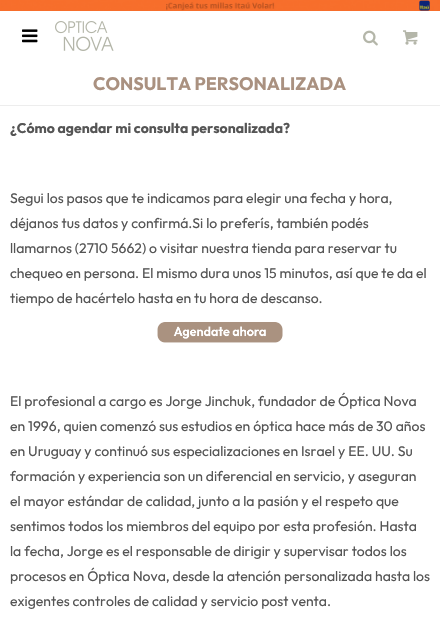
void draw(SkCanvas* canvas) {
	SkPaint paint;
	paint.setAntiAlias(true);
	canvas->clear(0xffffffff);
	canvas->drawImageRect(SkImages::DeferredFromEncodedData(SkData::MakeFromFileName("img1.png")), SkRect::MakeXYWH(0, 0, 440, 11), SkSamplingOptions());
	canvas->drawImageRect(SkImages::DeferredFromEncodedData(SkData::MakeFromFileName("img2.png")), SkRect::MakeXYWH(22, 29, 16, 14), SkSamplingOptions());
	canvas->drawImageRect(SkImages::DeferredFromEncodedData(SkData::MakeFromFileName("img3.png")), SkRect::MakeXYWH(55, 21, 59, 30), SkSamplingOptions());
	canvas->drawImageRect(SkImages::DeferredFromEncodedData(SkData::MakeFromFileName("img4.png")), SkRect::MakeXYWH(363, 30, 15, 16), SkSamplingOptions());
	canvas->drawImageRect(SkImages::DeferredFromEncodedData(SkData::MakeFromFileName("img5.png")), SkRect::MakeXYWH(403, 30, 15, 15), SkSamplingOptions());
	SkFont f1(fontMgr->matchFamilyStyle("Outfit", SkFontStyle::Bold()), 18);
	f1.setSubpixel(true);
	paint.setColor(0xffaa9180);
	canvas->drawString("CONSULTA PERSONALIZADA", 93, 90, f1, paint);
	paint.setColor(0xffededed);
	canvas->drawRect(SkRect::MakeXYWH(0, 105, 440, 1), paint);
	SkFont f2(fontMgr->matchFamilyStyle("Outfit", SkFontStyle::Bold()), 14);
	f2.setSubpixel(true);
	paint.setColor(0xff555555);
	canvas->drawString("¿Cómo agendar mi consulta personalizada?", 10, 133, f2, paint);
	SkFont f3(fontMgr->matchFamilyStyle("Outfit", SkFontStyle::Normal()), 14);
	f3.setSubpixel(true);
	canvas->drawString("Segui los pasos que te indicamos para elegir una fecha y hora,", 10, 203, f3, paint);
	canvas->drawString("déjanos tus datos y confirmá.Si lo preferís, también podés", 10, 228, f3, paint);
	canvas->drawString("llamarnos (2710 5662) o visitar nuestra tienda para reservar tu", 10, 253, f3, paint);
	canvas->drawString("chequeo en persona. El mismo dura unos 15 minutos, así que te da el", 10, 278, f3, paint);
	canvas->drawString("tiempo de hacértelo hasta en tu hora de descanso.", 10, 303, f3, paint);
	canvas->drawImageRect(SkImages::DeferredFromEncodedData(SkData::MakeFromFileName("img6.png")), SkRect::MakeXYWH(157, 322, 126, 21), SkSamplingOptions());
	canvas->drawString("El profesional a cargo es Jorge Jinchuk, fundador de Óptica Nova", 10, 406, f3, paint);
	canvas->drawString("en 1996, quien comenzó sus estudios en óptica hace más de 30 años", 10, 431, f3, paint);
	canvas->drawString("en Uruguay y continuó sus especializaciones en Israel y EE. UU. Su", 10, 456, f3, paint);
	canvas->drawString("formación y experiencia son un diferencial en servicio, y aseguran", 10, 481, f3, paint);
	canvas->drawString("el mayor estándar de calidad, junto a la pasión y el respeto que", 10, 506, f3, paint);
	canvas->drawString("sentimos todos los miembros del equipo por esta profesión. Hasta", 10, 531, f3, paint);
	canvas->drawString("la fecha, Jorge es el responsable de dirigir y supervisar todos los", 10, 556, f3, paint);
	canvas->drawString("procesos en Óptica Nova, desde la atención personalizada hasta los", 10, 581, f3, paint);
	canvas->drawString("exigentes controles de calidad y servicio post venta.", 10, 606, f3, paint);
}
